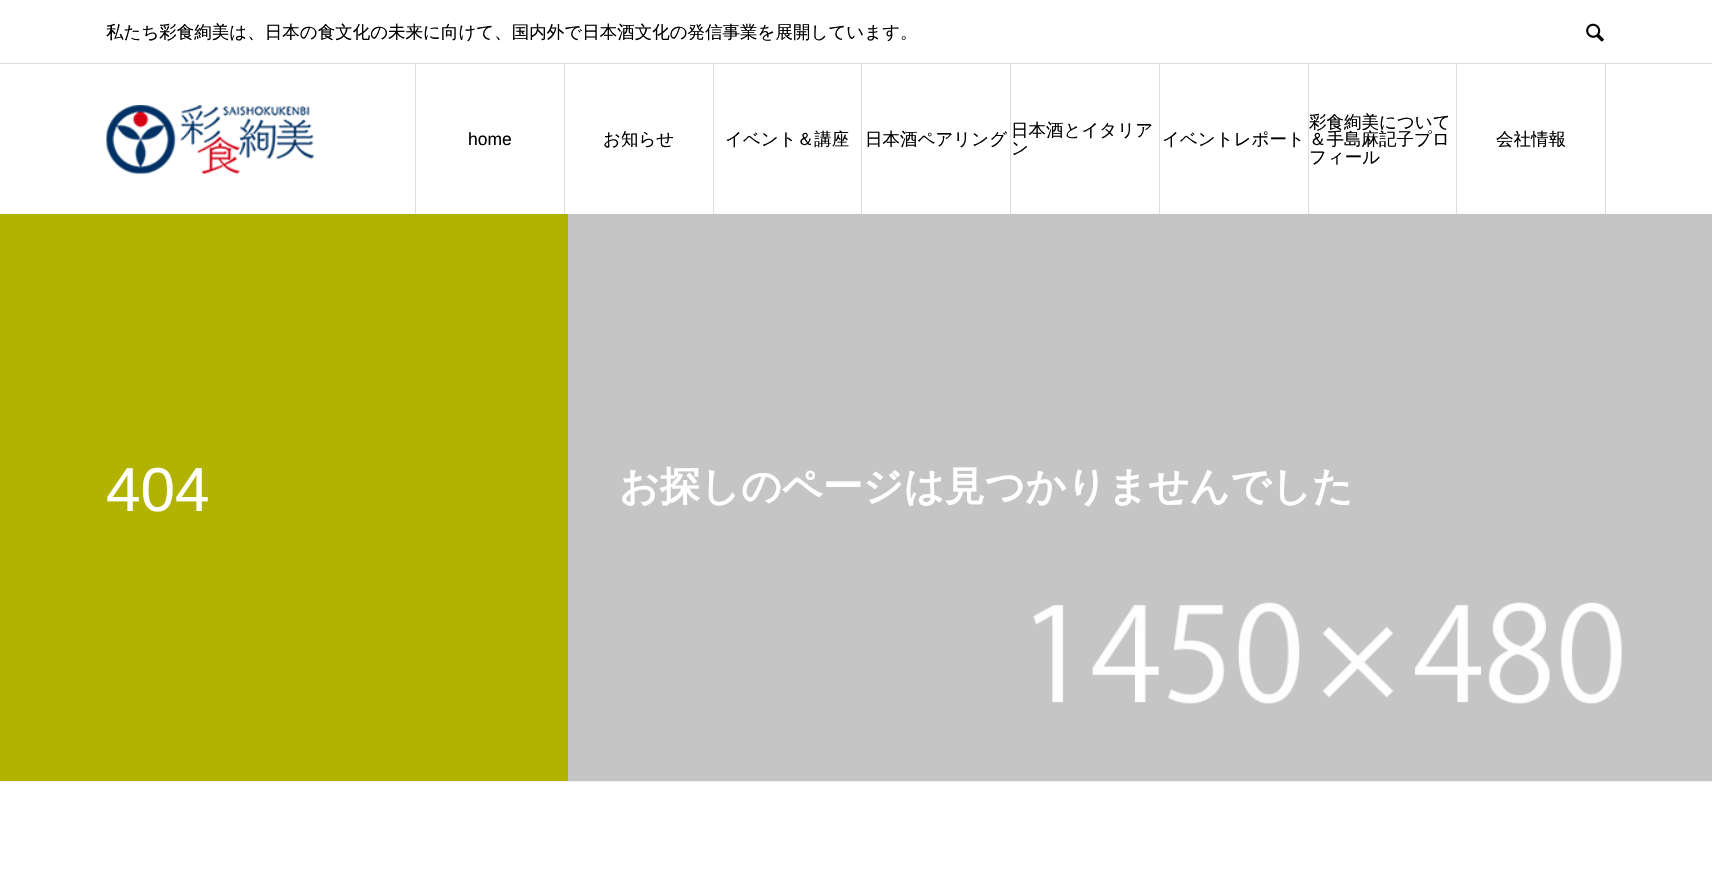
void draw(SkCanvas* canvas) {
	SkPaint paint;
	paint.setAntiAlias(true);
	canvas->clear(0xffffffff);
	paint.setColor(0xffdddddd);
	canvas->drawRect(SkRect::MakeXYWH(0, 63, 1712, 1), paint);
	SkFont f1(fontMgr->matchFamilyStyle("WenQuanYi Zen Hei", SkFontStyle(500, SkFontStyle::kNormal_Width, SkFontStyle::kUpright_Slant)), 17.5);
	f1.setSubpixel(true);
	paint.setColor(0xff000000);
	canvas->drawString("私たち彩食絢美は、日本の食文化の未来に向けて、国内外で日本酒文化の発信事業を展開しています。", 106, 38, f1, paint);
	canvas->drawImageRect(SkImages::DeferredFromEncodedData(SkData::MakeFromFileName("img1.png")), SkRect::MakeXYWH(1586, 23, 18, 19), SkSamplingOptions());
	canvas->drawImageRect(SkImages::DeferredFromEncodedData(SkData::MakeFromFileName("img2.png")), SkRect::MakeXYWH(106, 105, 208, 69), SkSamplingOptions());
	paint.setColor(0xffdddddd);
	canvas->drawRect(SkRect::MakeXYWH(564, 64, 1, 150), paint);
	canvas->drawRect(SkRect::MakeXYWH(415, 64, 1, 150), paint);
	SkFont f2(fontMgr->matchFamilyStyle("Liberation Sans", SkFontStyle::Normal()), 17.5);
	f2.setSubpixel(true);
	paint.setColor(0xff000000);
	canvas->drawString("home", 468, 145, f2, paint);
	paint.setColor(0xffdddddd);
	canvas->drawRect(SkRect::MakeXYWH(713, 64, 1, 150), paint);
	paint.setColor(0xff000000);
	canvas->drawString("お知らせ", 603, 145, f1, paint);
	paint.setColor(0xffdddddd);
	canvas->drawRect(SkRect::MakeXYWH(861, 64, 1, 150), paint);
	paint.setColor(0xff000000);
	canvas->drawString("イベント＆講座", 725, 145, f1, paint);
	paint.setColor(0xffdddddd);
	canvas->drawRect(SkRect::MakeXYWH(1010, 64, 1, 150), paint);
	paint.setColor(0xff000000);
	canvas->drawString("日本酒ペアリング", 865, 145, f1, paint);
	paint.setColor(0xffdddddd);
	canvas->drawRect(SkRect::MakeXYWH(1159, 64, 1, 150), paint);
	paint.setColor(0xff000000);
	canvas->drawString("日本酒とイタリア", 1011, 136, f1, paint);
	canvas->drawString("ン", 1011, 154, f1, paint);
	paint.setColor(0xffdddddd);
	canvas->drawRect(SkRect::MakeXYWH(1308, 64, 1, 150), paint);
	paint.setColor(0xff000000);
	canvas->drawString("イベントレポート", 1162, 145, f1, paint);
	paint.setColor(0xffdddddd);
	canvas->drawRect(SkRect::MakeXYWH(1456, 64, 1, 150), paint);
	paint.setColor(0xff000000);
	canvas->drawString("彩食絢美について", 1309, 128, f1, paint);
	canvas->drawString("＆手島麻記子プロ", 1309, 145, f1, paint);
	canvas->drawString("フィール", 1309, 163, f1, paint);
	paint.setColor(0xffdddddd);
	canvas->drawRect(SkRect::MakeXYWH(1605, 64, 1, 150), paint);
	paint.setColor(0xff000000);
	canvas->drawString("会社情報", 1496, 145, f1, paint);
	canvas->drawImageRect(SkImages::DeferredFromEncodedData(SkData::MakeFromFileName("img3.png")), SkRect::MakeXYWH(0, 214, 1712, 568), SkSamplingOptions());
	paint.setColor(0xffb2b200);
	canvas->drawRect(SkRect::MakeXYWH(0, 214, 568, 567), paint);
	SkFont f3(fontMgr->matchFamilyStyle("Liberation Sans", SkFontStyle::Normal()), 62);
	f3.setSubpixel(true);
	paint.setColor(0xffffffff);
	canvas->drawString("404", 106, 511, f3, paint);
	SkFont f4(fontMgr->matchFamilyStyle("WenQuanYi Zen Hei", SkFontStyle::Bold()), 40);
	f4.setSubpixel(true);
	canvas->drawString("お探しのページは見つかりませんでした", 619, 500, f4, paint);
}
